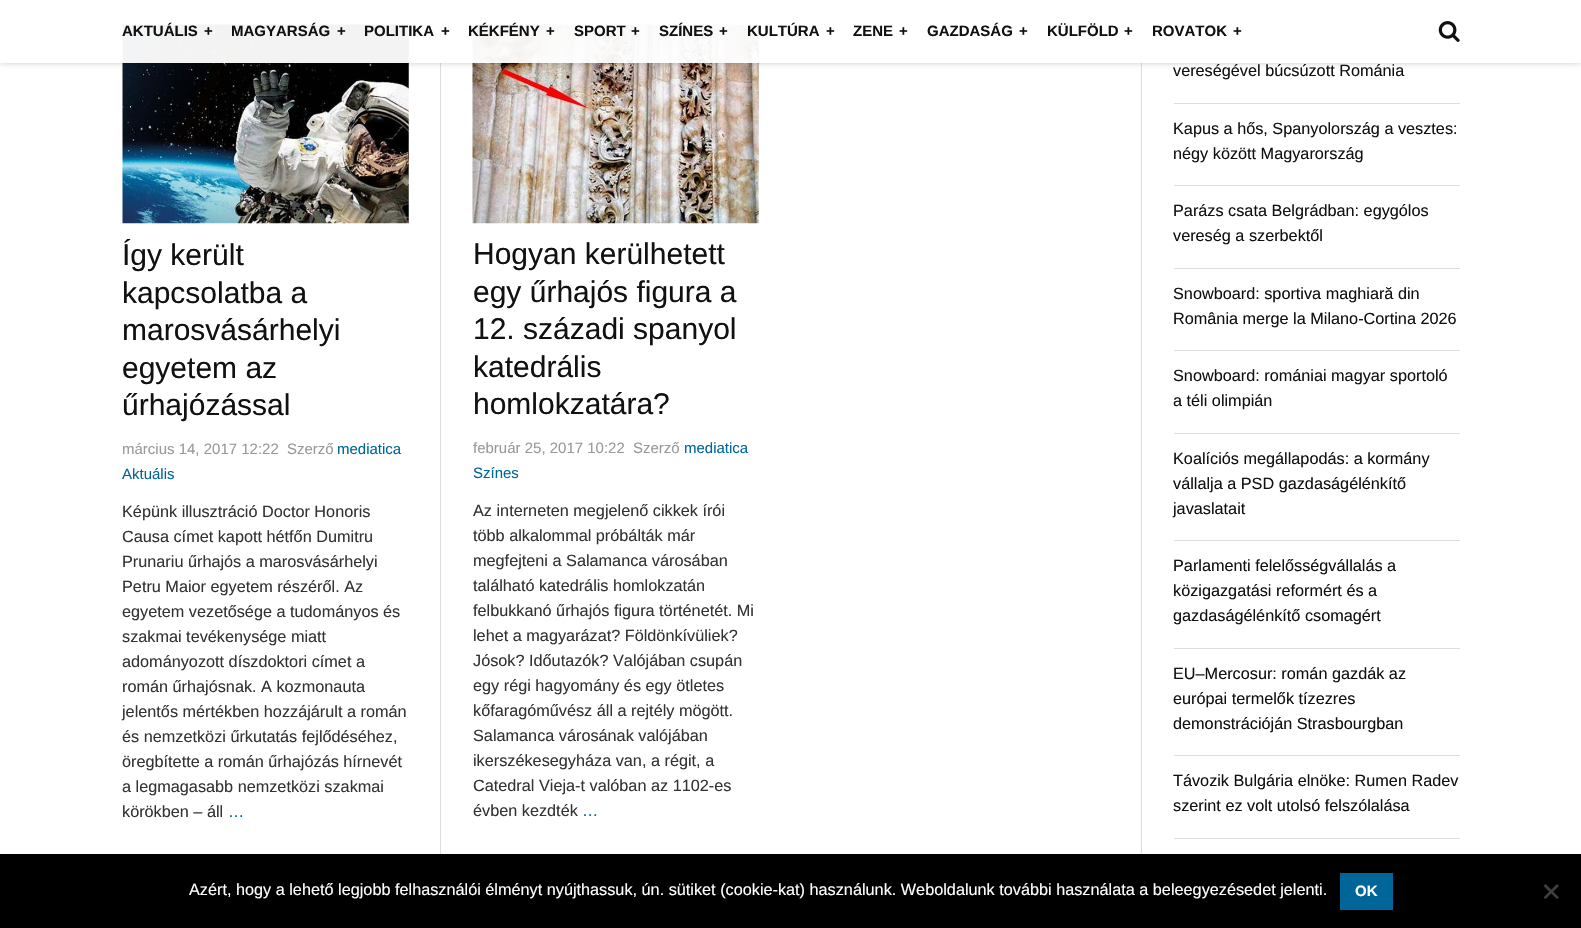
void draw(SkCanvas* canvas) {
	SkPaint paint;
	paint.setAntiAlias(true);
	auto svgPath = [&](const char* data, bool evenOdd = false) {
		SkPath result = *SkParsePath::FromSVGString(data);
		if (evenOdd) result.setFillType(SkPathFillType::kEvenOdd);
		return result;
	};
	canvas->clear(0xffffffff);
	paint.setColor(0xffdddddd);
	canvas->drawRect(SkRect::MakeXYWH(123, 3, 987, 4), paint);
	canvas->drawImageRect(SkImages::DeferredFromEncodedData(SkData::MakeFromFileName("img2.png")), SkRect::MakeXYWH(122, 24, 287, 200), SkSamplingOptions());
	canvas->drawRect(SkRect::MakeXYWH(440, 25, 1, 836), paint);
	canvas->drawImageRect(SkImages::DeferredFromEncodedData(SkData::MakeFromFileName("img3.png")), SkRect::MakeXYWH(472, 24, 287, 200), SkSamplingOptions());
	canvas->drawRect(SkRect::MakeXYWH(1141, 0, 1, 854), paint);
	canvas->drawRect(SkRect::MakeXYWH(1174, 11, 286, 4), paint);
	canvas->save();
	canvas->clipPath(svgPath("M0 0H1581V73H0ZM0 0H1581V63H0Z", true), true);
	paint.setColor(0x33000000);
	paint.setMaskFilter(SkMaskFilter::MakeBlur(kNormal_SkBlurStyle, 3));
	canvas->drawRect(SkRect::MakeXYWH(0, 0, 1581, 63), paint);
	paint.setMaskFilter(nullptr);
	canvas->restore();
	paint.setColor(0xf2ffffff);
	canvas->drawRect(SkRect::MakeXYWH(0, 0, 1581, 63), paint);
	SkFont f1(fontMgr->matchFamilyStyle("Liberation Sans", SkFontStyle::Bold()), 15);
	f1.setSubpixel(true);
	paint.setColor(0xff111111);
	canvas->drawString("AKTUÁLIS", 122, 36, f1, paint);
	canvas->drawString("+", 204, 36, f1, paint);
	canvas->drawString("MAGYARSÁG", 231, 36, f1, paint);
	canvas->drawString("+", 337, 36, f1, paint);
	canvas->drawString("POLITIKA", 364, 36, f1, paint);
	canvas->drawString("+", 441, 36, f1, paint);
	canvas->drawString("KÉKFÉNY", 468, 36, f1, paint);
	canvas->drawString("+", 546, 36, f1, paint);
	canvas->drawString("SPORT", 574, 36, f1, paint);
	canvas->drawString("+", 631, 36, f1, paint);
	canvas->drawString("SZÍNES", 659, 36, f1, paint);
	canvas->drawString("+", 719, 36, f1, paint);
	canvas->drawString("KULTÚRA", 747, 36, f1, paint);
	canvas->drawString("+", 826, 36, f1, paint);
	canvas->drawString("ZENE", 853, 36, f1, paint);
	canvas->drawString("+", 899, 36, f1, paint);
	canvas->drawString("GAZDASÁG", 927, 36, f1, paint);
	canvas->drawString("+", 1019, 36, f1, paint);
	canvas->drawString("KÜLFÖLD", 1047, 36, f1, paint);
	canvas->drawString("+", 1124, 36, f1, paint);
	canvas->drawString("ROVATOK", 1152, 36, f1, paint);
	canvas->drawString("+", 1233, 36, f1, paint);
	canvas->drawImageRect(SkImages::DeferredFromEncodedData(SkData::MakeFromFileName("img1.png")), SkRect::MakeXYWH(1438, 21, 22, 21), SkSamplingOptions());
	SkFont f2(fontMgr->matchFamilyStyle("Liberation Sans", SkFontStyle::Normal()), 30);
	f2.setSubpixel(true);
	canvas->drawString("Így került", 122, 265, f2, paint);
	canvas->drawString("kapcsolatba a", 122, 303, f2, paint);
	canvas->drawString("marosvásárhelyi", 122, 340, f2, paint);
	canvas->drawString("egyetem az", 122, 378, f2, paint);
	canvas->drawString("űrhajózással", 122, 415, f2, paint);
	SkFont f3(fontMgr->matchFamilyStyle("Liberation Sans", SkFontStyle::Normal()), 15);
	f3.setSubpixel(true);
	paint.setColor(0xff999999);
	canvas->drawString("március 14, 2017 12:22", 122, 454, f3, paint);
	canvas->drawString("Szerző", 287, 454, f3, paint);
	paint.setColor(0xff006699);
	canvas->drawString("mediatica", 337, 454, f3, paint);
	canvas->drawString("Aktuális", 122, 479, f3, paint);
	SkFont f4(fontMgr->matchFamilyStyle("Liberation Sans", SkFontStyle::Normal()), 16.25);
	f4.setSubpixel(true);
	paint.setColor(0xff333333);
	canvas->drawString("Képünk illusztráció Doctor Honoris", 122, 517, f4, paint);
	canvas->drawString("Causa címet kapott hétfőn Dumitru", 122, 542, f4, paint);
	canvas->drawString("Prunariu űrhajós a marosvásárhelyi", 122, 567, f4, paint);
	canvas->drawString("Petru Maior egyetem részéről. Az", 122, 592, f4, paint);
	canvas->drawString("egyetem vezetősége a tudományos és", 122, 617, f4, paint);
	canvas->drawString("szakmai tevékenysége miatt", 122, 642, f4, paint);
	canvas->drawString("adományozott díszdoktori címet a", 122, 667, f4, paint);
	canvas->drawString("román űrhajósnak. A kozmonauta", 122, 692, f4, paint);
	canvas->drawString("jelentős mértékben hozzájárult a román", 122, 717, f4, paint);
	canvas->drawString("és nemzetközi űrkutatás fejlődéséhez,", 122, 742, f4, paint);
	canvas->drawString("öregbítette a román űrhajózás hírnevét", 122, 767, f4, paint);
	canvas->drawString("a legmagasabb nemzetközi szakmai", 122, 792, f4, paint);
	canvas->drawString("körökben – áll", 122, 817, f4, paint);
	paint.setColor(0xff006699);
	canvas->drawString("…", 228, 817, f4, paint);
	paint.setColor(0xff111111);
	canvas->drawString("Hogyan kerülhetett", 473, 264, f2, paint);
	canvas->drawString("egy űrhajós figura a", 473, 302, f2, paint);
	canvas->drawString("12. századi spanyol", 473, 339, f2, paint);
	canvas->drawString("katedrális", 473, 377, f2, paint);
	canvas->drawString("homlokzatára?", 473, 414, f2, paint);
	paint.setColor(0xff999999);
	canvas->drawString("február 25, 2017 10:22", 473, 453, f3, paint);
	canvas->drawString("Szerző", 633, 453, f3, paint);
	paint.setColor(0xff006699);
	canvas->drawString("mediatica", 684, 453, f3, paint);
	canvas->drawString("Színes", 473, 478, f3, paint);
	paint.setColor(0xff333333);
	canvas->drawString("Az interneten megjelenő cikkek írói", 473, 516, f4, paint);
	canvas->drawString("több alkalommal próbálták már", 473, 541, f4, paint);
	canvas->drawString("megfejteni a Salamanca városában", 473, 566, f4, paint);
	canvas->drawString("található katedrális homlokzatán", 473, 591, f4, paint);
	canvas->drawString("felbukkanó űrhajós figura történetét. Mi", 473, 616, f4, paint);
	canvas->drawString("lehet a magyarázat? Földönkívüliek?", 473, 641, f4, paint);
	canvas->drawString("Jósok? Időutazók? Valójában csupán", 473, 666, f4, paint);
	canvas->drawString("egy régi hagyomány és egy ötletes", 473, 691, f4, paint);
	canvas->drawString("kőfaragóművész áll a rejtély mögött.", 473, 716, f4, paint);
	canvas->drawString("Salamanca városának valójában", 473, 741, f4, paint);
	canvas->drawString("ikerszékesegyháza van, a régit, a", 473, 766, f4, paint);
	canvas->drawString("Catedral Vieja-t valóban az 1102-es", 473, 791, f4, paint);
	canvas->drawString("évben kezdték", 473, 816, f4, paint);
	paint.setColor(0xff006699);
	canvas->drawString("…", 582, 816, f4, paint);
	paint.setColor(0xff111111);
	canvas->drawString("vereségével búcsúzott Románia", 1173, 76, f4, paint);
	paint.setColor(0xffdddddd);
	canvas->drawRect(SkRect::MakeXYWH(1174, 103, 286, 1), paint);
	paint.setColor(0xff111111);
	canvas->drawString("Kapus a hős, Spanyolország a vesztes:", 1173, 134, f4, paint);
	canvas->drawString("négy között Magyarország", 1173, 159, f4, paint);
	paint.setColor(0xffdddddd);
	canvas->drawRect(SkRect::MakeXYWH(1174, 185, 286, 1), paint);
	paint.setColor(0xff111111);
	canvas->drawString("Parázs csata Belgrádban: egygólos", 1173, 216, f4, paint);
	canvas->drawString("vereség a szerbektől", 1173, 241, f4, paint);
	paint.setColor(0xffdddddd);
	canvas->drawRect(SkRect::MakeXYWH(1174, 268, 286, 1), paint);
	paint.setColor(0xff111111);
	canvas->drawString("Snowboard: sportiva maghiară din", 1173, 299, f4, paint);
	canvas->drawString("România merge la Milano-Cortina 2026", 1173, 324, f4, paint);
	paint.setColor(0xffdddddd);
	canvas->drawRect(SkRect::MakeXYWH(1174, 350, 286, 1), paint);
	paint.setColor(0xff111111);
	canvas->drawString("Snowboard: romániai magyar sportoló", 1173, 381, f4, paint);
	canvas->drawString("a téli olimpián", 1173, 406, f4, paint);
	paint.setColor(0xffdddddd);
	canvas->drawRect(SkRect::MakeXYWH(1174, 433, 286, 1), paint);
	paint.setColor(0xff111111);
	canvas->drawString("Koalíciós megállapodás: a kormány", 1173, 464, f4, paint);
	canvas->drawString("vállalja a PSD gazdaságélénkítő", 1173, 489, f4, paint);
	canvas->drawString("javaslatait", 1173, 514, f4, paint);
	paint.setColor(0xffdddddd);
	canvas->drawRect(SkRect::MakeXYWH(1174, 540, 286, 1), paint);
	paint.setColor(0xff111111);
	canvas->drawString("Parlamenti felelősségvállalás a", 1173, 571, f4, paint);
	canvas->drawString("közigazgatási reformért és a", 1173, 596, f4, paint);
	canvas->drawString("gazdaságélénkítő csomagért", 1173, 621, f4, paint);
	paint.setColor(0xffdddddd);
	canvas->drawRect(SkRect::MakeXYWH(1174, 648, 286, 1), paint);
	paint.setColor(0xff111111);
	canvas->drawString("EU–Mercosur: román gazdák az", 1173, 679, f4, paint);
	canvas->drawString("európai termelők tízezres", 1173, 704, f4, paint);
	canvas->drawString("demonstrációján Strasbourgban", 1173, 729, f4, paint);
	paint.setColor(0xffdddddd);
	canvas->drawRect(SkRect::MakeXYWH(1174, 755, 286, 1), paint);
	paint.setColor(0xff111111);
	canvas->drawString("Távozik Bulgária elnöke: Rumen Radev", 1173, 786, f4, paint);
	canvas->drawString("szerint ez volt utolsó felszólalása", 1173, 811, f4, paint);
	paint.setColor(0xffdddddd);
	canvas->drawRect(SkRect::MakeXYWH(1174, 838, 286, 1), paint);
	paint.setColor(0xff000000);
	canvas->drawRect(SkRect::MakeXYWH(0, 854, 1581, 74), paint);
	paint.setColor(0xffffffff);
	canvas->drawString("Azért, hogy a lehető legjobb felhasználói élményt nyújthassuk, ún. sütiket (cookie-kat) használunk. Weboldalunk további használata a beleegyezésedet jelenti.", 189, 895, f4, paint);
	paint.setColor(0xff006699);
	canvas->drawRect(SkRect::MakeXYWH(1340, 873, 53, 37), paint);
	paint.setColor(0xffffffff);
	canvas->drawString("OK", 1355, 896, f1, paint);
	paint.setColor(0xff404040);
	canvas->drawPath(svgPath("M1557 884L1559 886L1545.5 899L1543.5 897.5Z"), paint);
	canvas->drawPath(svgPath("M1543.5 886L1545.5 884L1559 897.5L1557 899Z"), paint);
}
